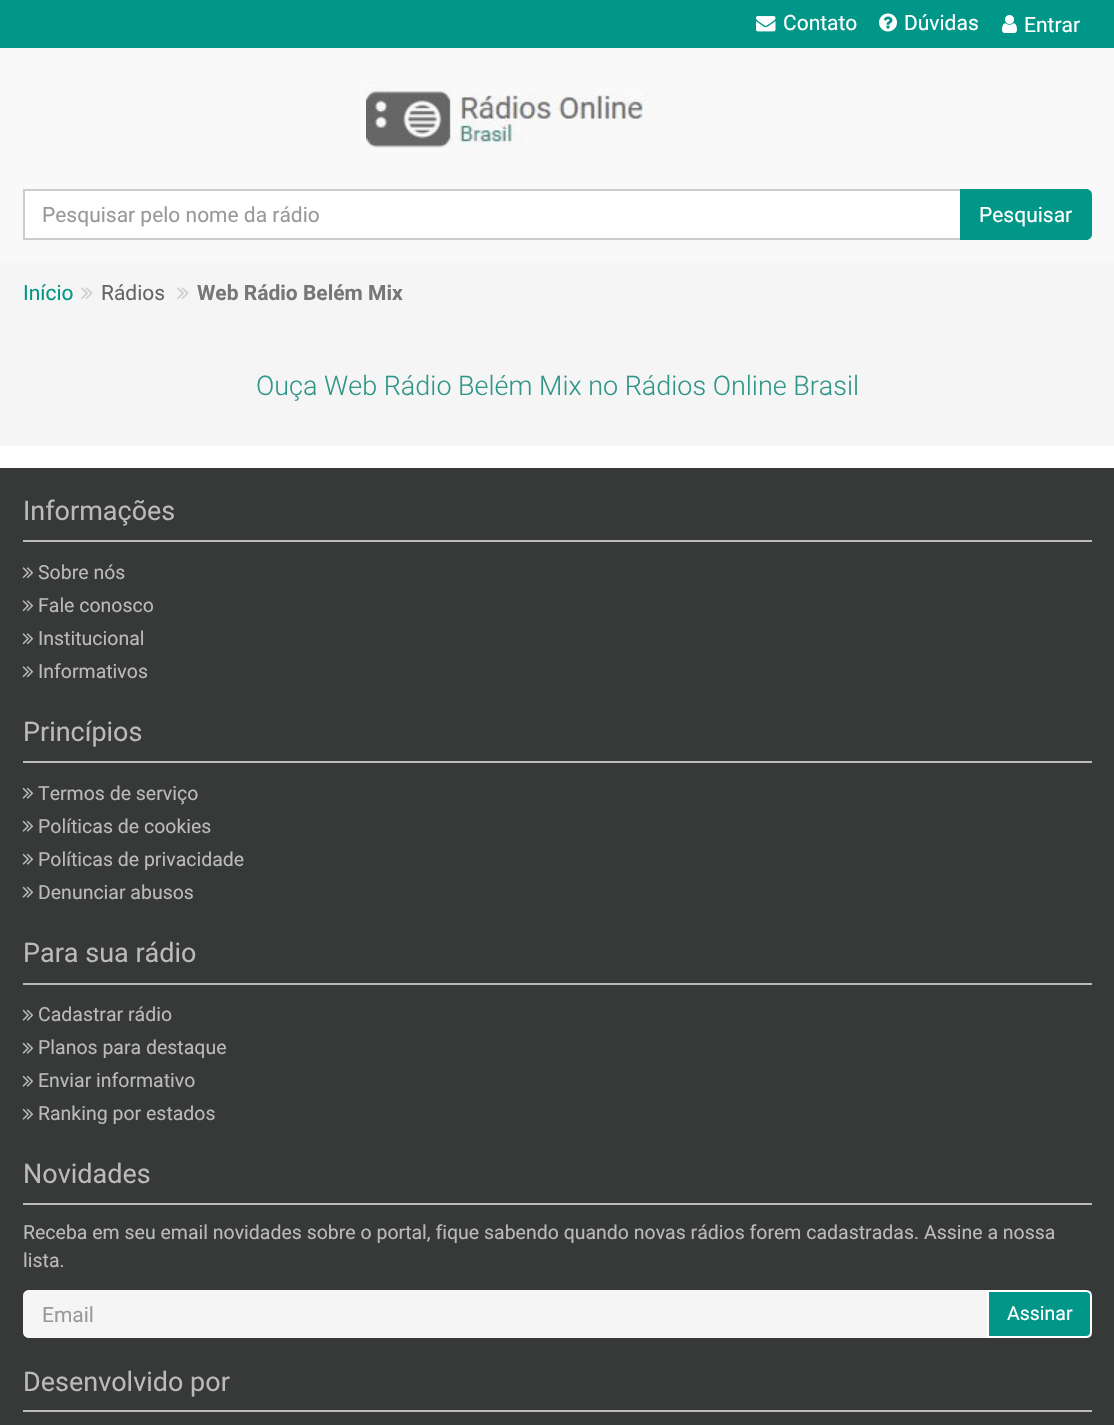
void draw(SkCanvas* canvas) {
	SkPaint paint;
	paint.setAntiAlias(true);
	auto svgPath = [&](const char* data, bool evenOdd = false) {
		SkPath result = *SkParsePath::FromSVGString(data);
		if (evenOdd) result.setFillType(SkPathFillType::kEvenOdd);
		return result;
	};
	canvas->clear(0xffffffff);
	paint.setColor(0xff009688);
	canvas->drawRect(SkRect::MakeXYWH(0, 0, 1114, 48), paint);
	canvas->drawImageRect(SkImages::DeferredFromEncodedData(SkData::MakeFromFileName("img1.png")), SkRect::MakeXYWH(756, 16, 20, 16), SkSamplingOptions());
	SkFont f1(fontMgr->matchFamilyStyle("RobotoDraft", SkFontStyle::Normal()), 21);
	f1.setSubpixel(true);
	paint.setColor(0xffffffff);
	canvas->drawString("Contato", 783, 30, f1, paint);
	canvas->drawImageRect(SkImages::DeferredFromEncodedData(SkData::MakeFromFileName("img2.png")), SkRect::MakeXYWH(879, 13, 18, 19), SkSamplingOptions());
	canvas->drawString("Dúvidas", 904, 30, f1, paint);
	canvas->drawImageRect(SkImages::DeferredFromEncodedData(SkData::MakeFromFileName("img3.png")), SkRect::MakeXYWH(1002, 15, 15, 18), SkSamplingOptions());
	canvas->drawString("Entrar", 1024, 32, f1, paint);
	paint.setColor(0xfff9f9f9);
	canvas->drawRect(SkRect::MakeXYWH(0, 48, 1114, 215), paint);
	canvas->drawImageRect(SkImages::DeferredFromEncodedData(SkData::MakeFromFileName("img4.png")), SkRect::MakeXYWH(366, 84, 283, 67), SkSamplingOptions());
	paint.setColor(0xffffffff);
	canvas->drawRect(SkRect::MakeXYWH(24, 190, 937, 49), paint);
	paint.setStroke(true);
	paint.setStrokeWidth(2);
	paint.setColor(0xffcccccc);
	canvas->drawRect(SkRect::MakeXYWH(24, 190, 937, 49), paint);
	paint.setStroke(false);
	paint.setColor(0xff999999);
	canvas->drawString("Pesquisar pelo nome da rádio", 42, 222, f1, paint);
	paint.setColor(0xff009688);
	canvas->drawPath(svgPath("M960 189H1086C1089.5 189 1092 191.5 1092 195V234C1092 237.5 1089.5 240 1086 240H960Z"), paint);
	paint.setColor(0xffffffff);
	canvas->drawString("Pesquisar", 979, 222, f1, paint);
	paint.setColor(0xfff5f5f5);
	canvas->drawRect(SkRect::MakeXYWH(0, 263, 1114, 183), paint);
	paint.setColor(0xff009688);
	canvas->drawString("Início", 23, 300, f1, paint);
	canvas->drawImageRect(SkImages::DeferredFromEncodedData(SkData::MakeFromFileName("img5.png")), SkRect::MakeXYWH(81, 287, 12, 12), SkSamplingOptions());
	paint.setColor(0xff666666);
	canvas->drawString("Rádios", 101, 300, f1, paint);
	canvas->drawImageRect(SkImages::DeferredFromEncodedData(SkData::MakeFromFileName("img5.png")), SkRect::MakeXYWH(177, 287, 12, 12), SkSamplingOptions());
	SkFont f2(fontMgr->matchFamilyStyle("RobotoDraft", SkFontStyle::Bold()), 21);
	f2.setSubpixel(true);
	paint.setColor(0xff777777);
	canvas->drawString("Web Rádio Belém Mix", 197, 300, f2, paint);
	SkFont f3(fontMgr->matchFamilyStyle("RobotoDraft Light", SkFontStyle(300, SkFontStyle::kNormal_Width, SkFontStyle::kUpright_Slant)), 27);
	f3.setSubpixel(true);
	paint.setColor(0xff309687);
	canvas->drawString("Ouça Web Rádio Belém Mix no Rádios Online Brasil", 256, 395, f3, paint);
	paint.setColor(0xff373939);
	canvas->drawRect(SkRect::MakeXYWH(0, 468, 1114, 957), paint);
	paint.setColor(0xffbababa);
	canvas->drawRect(SkRect::MakeXYWH(23, 540, 1069, 2), paint);
	SkFont f4(fontMgr->matchFamilyStyle("RobotoDraft", SkFontStyle::Normal()), 27);
	f4.setSubpixel(true);
	canvas->drawString("Informações", 23, 520, f4, paint);
	canvas->drawImageRect(SkImages::DeferredFromEncodedData(SkData::MakeFromFileName("img6.png")), SkRect::MakeXYWH(22, 567, 12, 12), SkSamplingOptions());
	SkFont f5(fontMgr->matchFamilyStyle("RobotoDraft", SkFontStyle::Normal()), 19.5);
	f5.setSubpixel(true);
	canvas->drawString("Sobre nós", 38, 579, f5, paint);
	canvas->drawImageRect(SkImages::DeferredFromEncodedData(SkData::MakeFromFileName("img6.png")), SkRect::MakeXYWH(22, 600, 12, 12), SkSamplingOptions());
	canvas->drawString("Fale conosco", 38, 612, f5, paint);
	canvas->drawImageRect(SkImages::DeferredFromEncodedData(SkData::MakeFromFileName("img6.png")), SkRect::MakeXYWH(22, 633, 12, 12), SkSamplingOptions());
	canvas->drawString("Institucional", 38, 645, f5, paint);
	canvas->drawImageRect(SkImages::DeferredFromEncodedData(SkData::MakeFromFileName("img6.png")), SkRect::MakeXYWH(22, 666, 12, 12), SkSamplingOptions());
	canvas->drawString("Informativos", 38, 678, f5, paint);
	canvas->drawRect(SkRect::MakeXYWH(23, 761, 1069, 2), paint);
	canvas->drawString("Princípios", 23, 741, f4, paint);
	canvas->drawImageRect(SkImages::DeferredFromEncodedData(SkData::MakeFromFileName("img7.png")), SkRect::MakeXYWH(22, 787, 12, 12), SkSamplingOptions());
	canvas->drawString("Termos de serviço", 38, 800, f5, paint);
	canvas->drawImageRect(SkImages::DeferredFromEncodedData(SkData::MakeFromFileName("img7.png")), SkRect::MakeXYWH(22, 820, 12, 12), SkSamplingOptions());
	canvas->drawString("Políticas de cookies", 38, 833, f5, paint);
	canvas->drawImageRect(SkImages::DeferredFromEncodedData(SkData::MakeFromFileName("img7.png")), SkRect::MakeXYWH(22, 853, 12, 12), SkSamplingOptions());
	canvas->drawString("Políticas de privacidade", 38, 866, f5, paint);
	canvas->drawImageRect(SkImages::DeferredFromEncodedData(SkData::MakeFromFileName("img7.png")), SkRect::MakeXYWH(22, 886, 12, 12), SkSamplingOptions());
	canvas->drawString("Denunciar abusos", 38, 899, f5, paint);
	canvas->drawRect(SkRect::MakeXYWH(23, 983, 1069, 2), paint);
	canvas->drawString("Para sua rádio", 23, 962, f4, paint);
	canvas->drawImageRect(SkImages::DeferredFromEncodedData(SkData::MakeFromFileName("img7.png")), SkRect::MakeXYWH(22, 1009, 12, 12), SkSamplingOptions());
	canvas->drawString("Cadastrar rádio", 38, 1021, f5, paint);
	canvas->drawImageRect(SkImages::DeferredFromEncodedData(SkData::MakeFromFileName("img7.png")), SkRect::MakeXYWH(22, 1042, 12, 12), SkSamplingOptions());
	canvas->drawString("Planos para destaque", 38, 1054, f5, paint);
	canvas->drawImageRect(SkImages::DeferredFromEncodedData(SkData::MakeFromFileName("img7.png")), SkRect::MakeXYWH(22, 1075, 12, 12), SkSamplingOptions());
	canvas->drawString("Enviar informativo", 38, 1087, f5, paint);
	canvas->drawImageRect(SkImages::DeferredFromEncodedData(SkData::MakeFromFileName("img7.png")), SkRect::MakeXYWH(22, 1108, 12, 12), SkSamplingOptions());
	canvas->drawString("Ranking por estados", 38, 1120, f5, paint);
	canvas->drawRect(SkRect::MakeXYWH(23, 1203, 1069, 2), paint);
	canvas->drawString("Novidades", 23, 1183, f4, paint);
	canvas->drawString("Receba em seu email novidades sobre o portal, fique sabendo quando novas rádios forem cadastradas. Assine a nossa", 23, 1239, f5, paint);
	canvas->drawString("lista.", 23, 1267, f5, paint);
	paint.setColor(0xfff5f5f5);
	canvas->drawPath(svgPath("M29 1290H989V1338H29C25.5 1338 23 1335.5 23 1332V1296C23 1292.5 25.5 1290 29 1290Z"), paint);
	paint.setColor(0xff999999);
	canvas->drawString("Email", 42, 1322, f1, paint);
	paint.setColor(0xff009688);
	canvas->drawPath(svgPath("M988 1291H1086C1089 1291 1091 1293 1091 1296V1332C1091 1335 1089 1337 1086 1337H988Z"), paint);
	paint.setStroke(true);
	paint.setColor(0xffffffff);
	canvas->drawPath(svgPath("M988 1291H1086C1089 1291 1091 1293 1091 1296V1332C1091 1335 1089 1337 1086 1337H988Z"), paint);
	paint.setStroke(false);
	canvas->drawString("Assinar", 1007, 1320, f5, paint);
	paint.setColor(0xffbababa);
	canvas->drawRect(SkRect::MakeXYWH(23, 1410, 1069, 2), paint);
	canvas->drawString("Desenvolvido por", 23, 1391, f4, paint);
}
